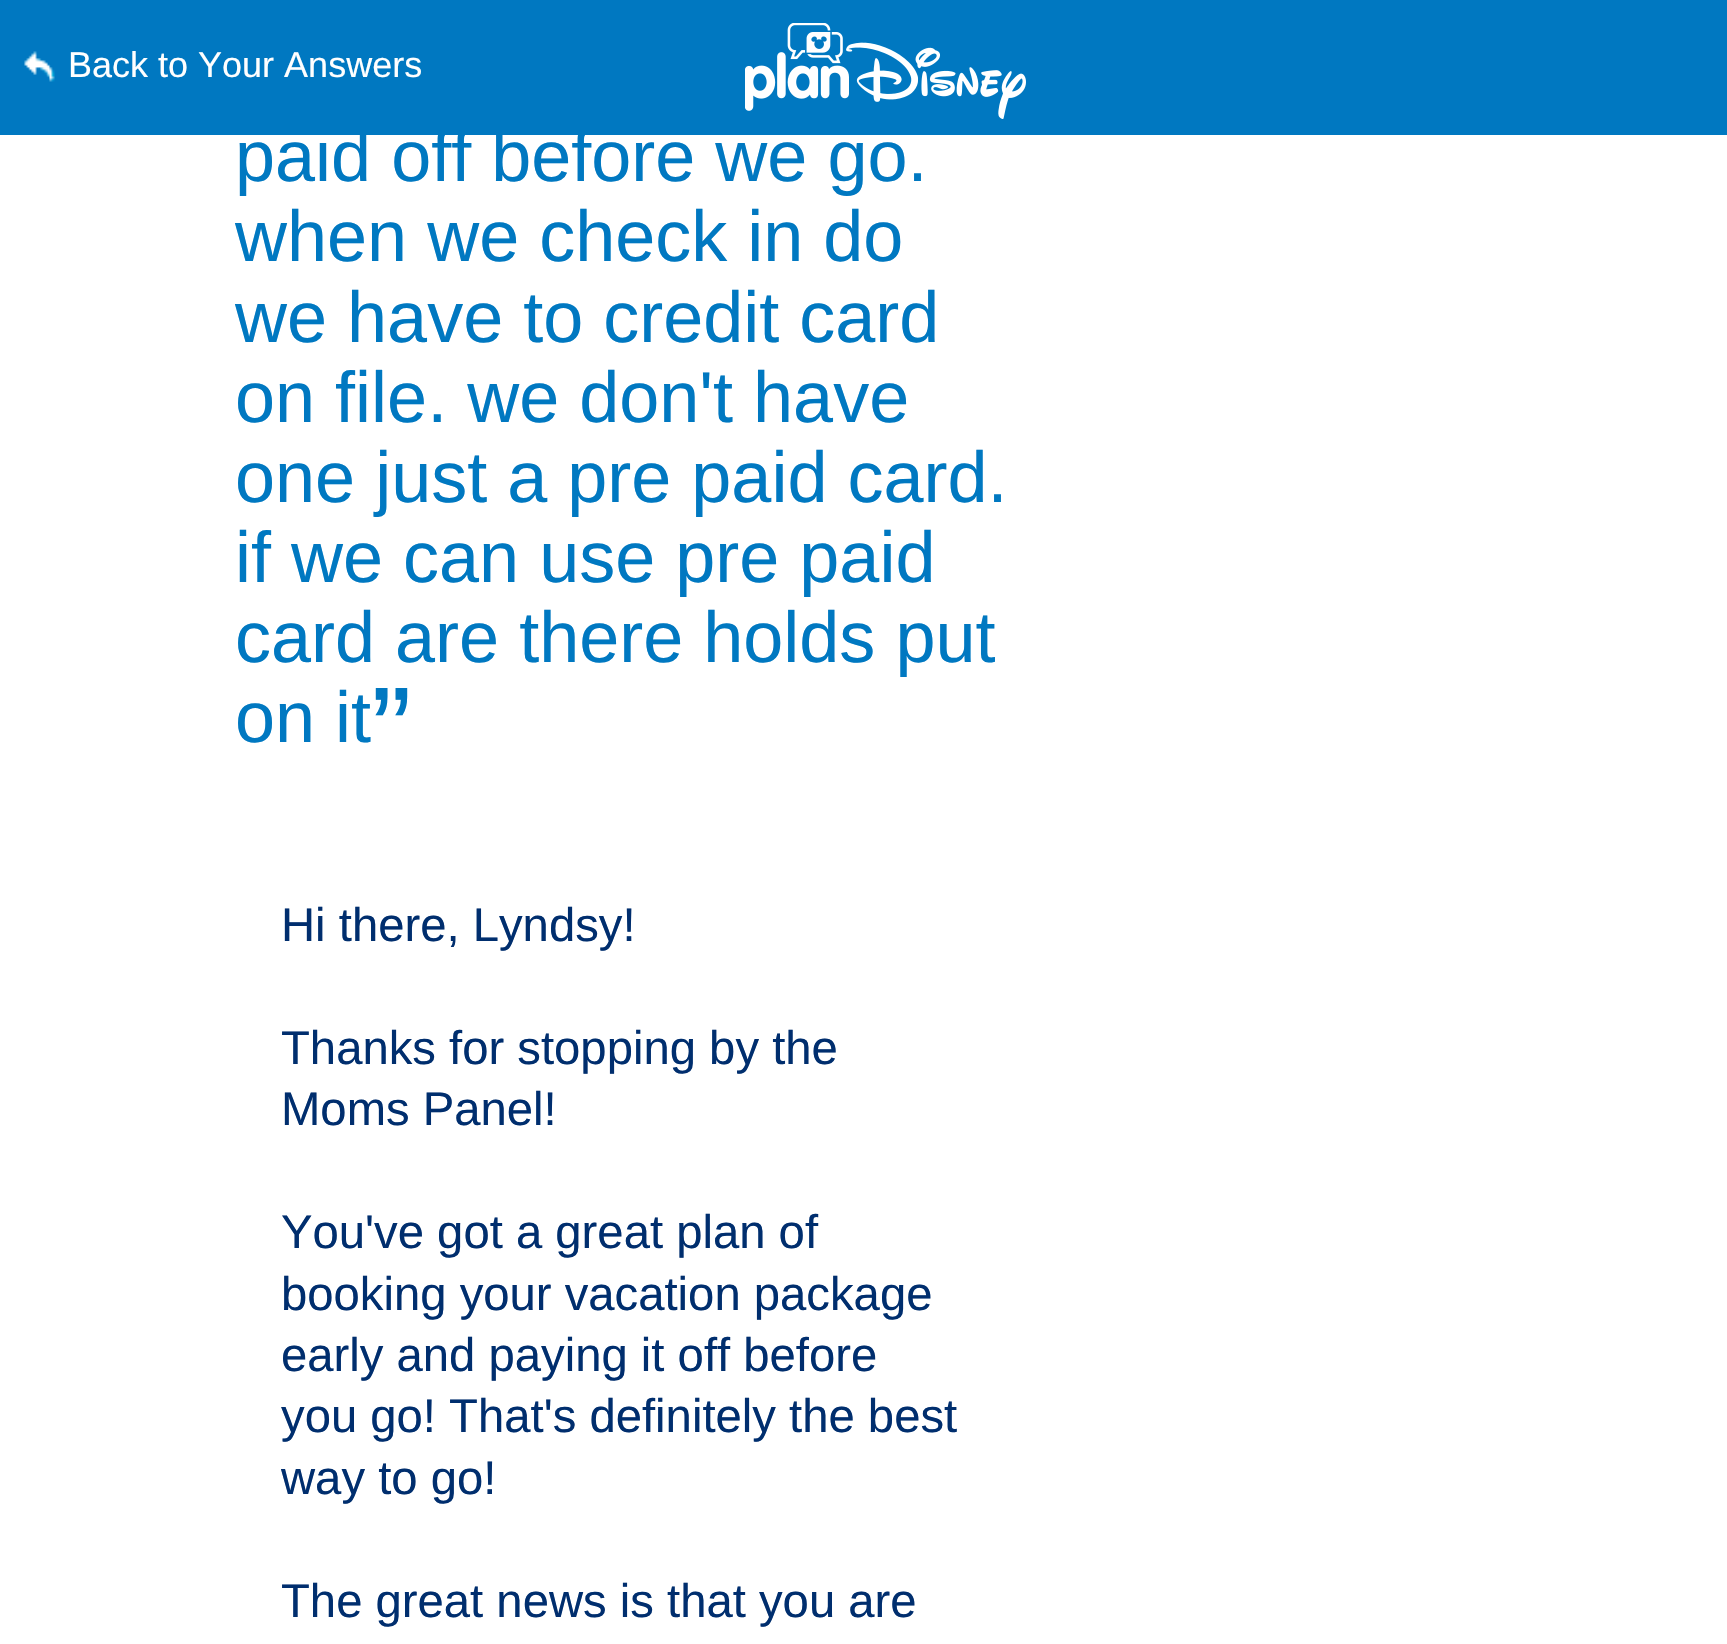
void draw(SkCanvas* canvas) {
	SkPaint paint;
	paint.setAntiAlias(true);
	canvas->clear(0xffffffff);
	paint.setColor(0xff0078c1);
	canvas->drawRect(SkRect::MakeXYWH(0, 0, 1727, 135), paint);
	canvas->drawImageRect(SkImages::DeferredFromEncodedData(SkData::MakeFromFileName("img1.png")), SkRect::MakeXYWH(24, 51, 31, 31), SkSamplingOptions());
	SkFont f1(fontMgr->matchFamilyStyle("Liberation Sans", SkFontStyle::Normal()), 36);
	f1.setSubpixel(true);
	paint.setColor(0xffffffff);
	canvas->drawString("Back to Your Answers", 68, 77, f1, paint);
	canvas->drawImageRect(SkImages::DeferredFromEncodedData(SkData::MakeFromFileName("img2.png")), SkRect::MakeXYWH(745, 23, 281, 96), SkSamplingOptions());
	SkFont f2(fontMgr->matchFamilyStyle("Liberation Sans", SkFontStyle::Normal()), 72);
	f2.setSubpixel(true);
	paint.setColor(0xff0078c1);
	canvas->drawString("paid off before we go.", 235, 181, f2, paint);
	canvas->drawString("when we check in do", 235, 261, f2, paint);
	canvas->drawString("we have to credit card", 235, 342, f2, paint);
	canvas->drawString("on file. we don't have", 235, 422, f2, paint);
	canvas->drawString("one just a pre paid card.", 235, 502, f2, paint);
	canvas->drawString("if we can use pre paid", 235, 582, f2, paint);
	canvas->drawString("card are there holds put", 235, 662, f2, paint);
	canvas->drawString("on it", 235, 742, f2, paint);
	SkFont f3(fontMgr->matchFamilyStyle("Liberation Sans", SkFontStyle::Normal()), 122);
	f3.setSubpixel(true);
	canvas->drawString("”", 371, 772, f3, paint);
	SkFont f4(fontMgr->matchFamilyStyle("Liberation Sans", SkFontStyle::Normal()), 47.25);
	f4.setSubpixel(true);
	paint.setColor(0xff002e6e);
	canvas->drawString("Hi there, Lyndsy!", 281, 941, f4, paint);
	canvas->drawString("Thanks for stopping by the", 281, 1064, f4, paint);
	canvas->drawString("Moms Panel!", 281, 1125, f4, paint);
	canvas->drawString("You've got a great plan of", 281, 1248, f4, paint);
	canvas->drawString("booking your vacation package", 281, 1310, f4, paint);
	canvas->drawString("early and paying it off before", 281, 1371, f4, paint);
	canvas->drawString("you go! That's definitely the best", 281, 1432, f4, paint);
	canvas->drawString("way to go!", 281, 1494, f4, paint);
	canvas->drawString("The great news is that you are", 281, 1617, f4, paint);
}
